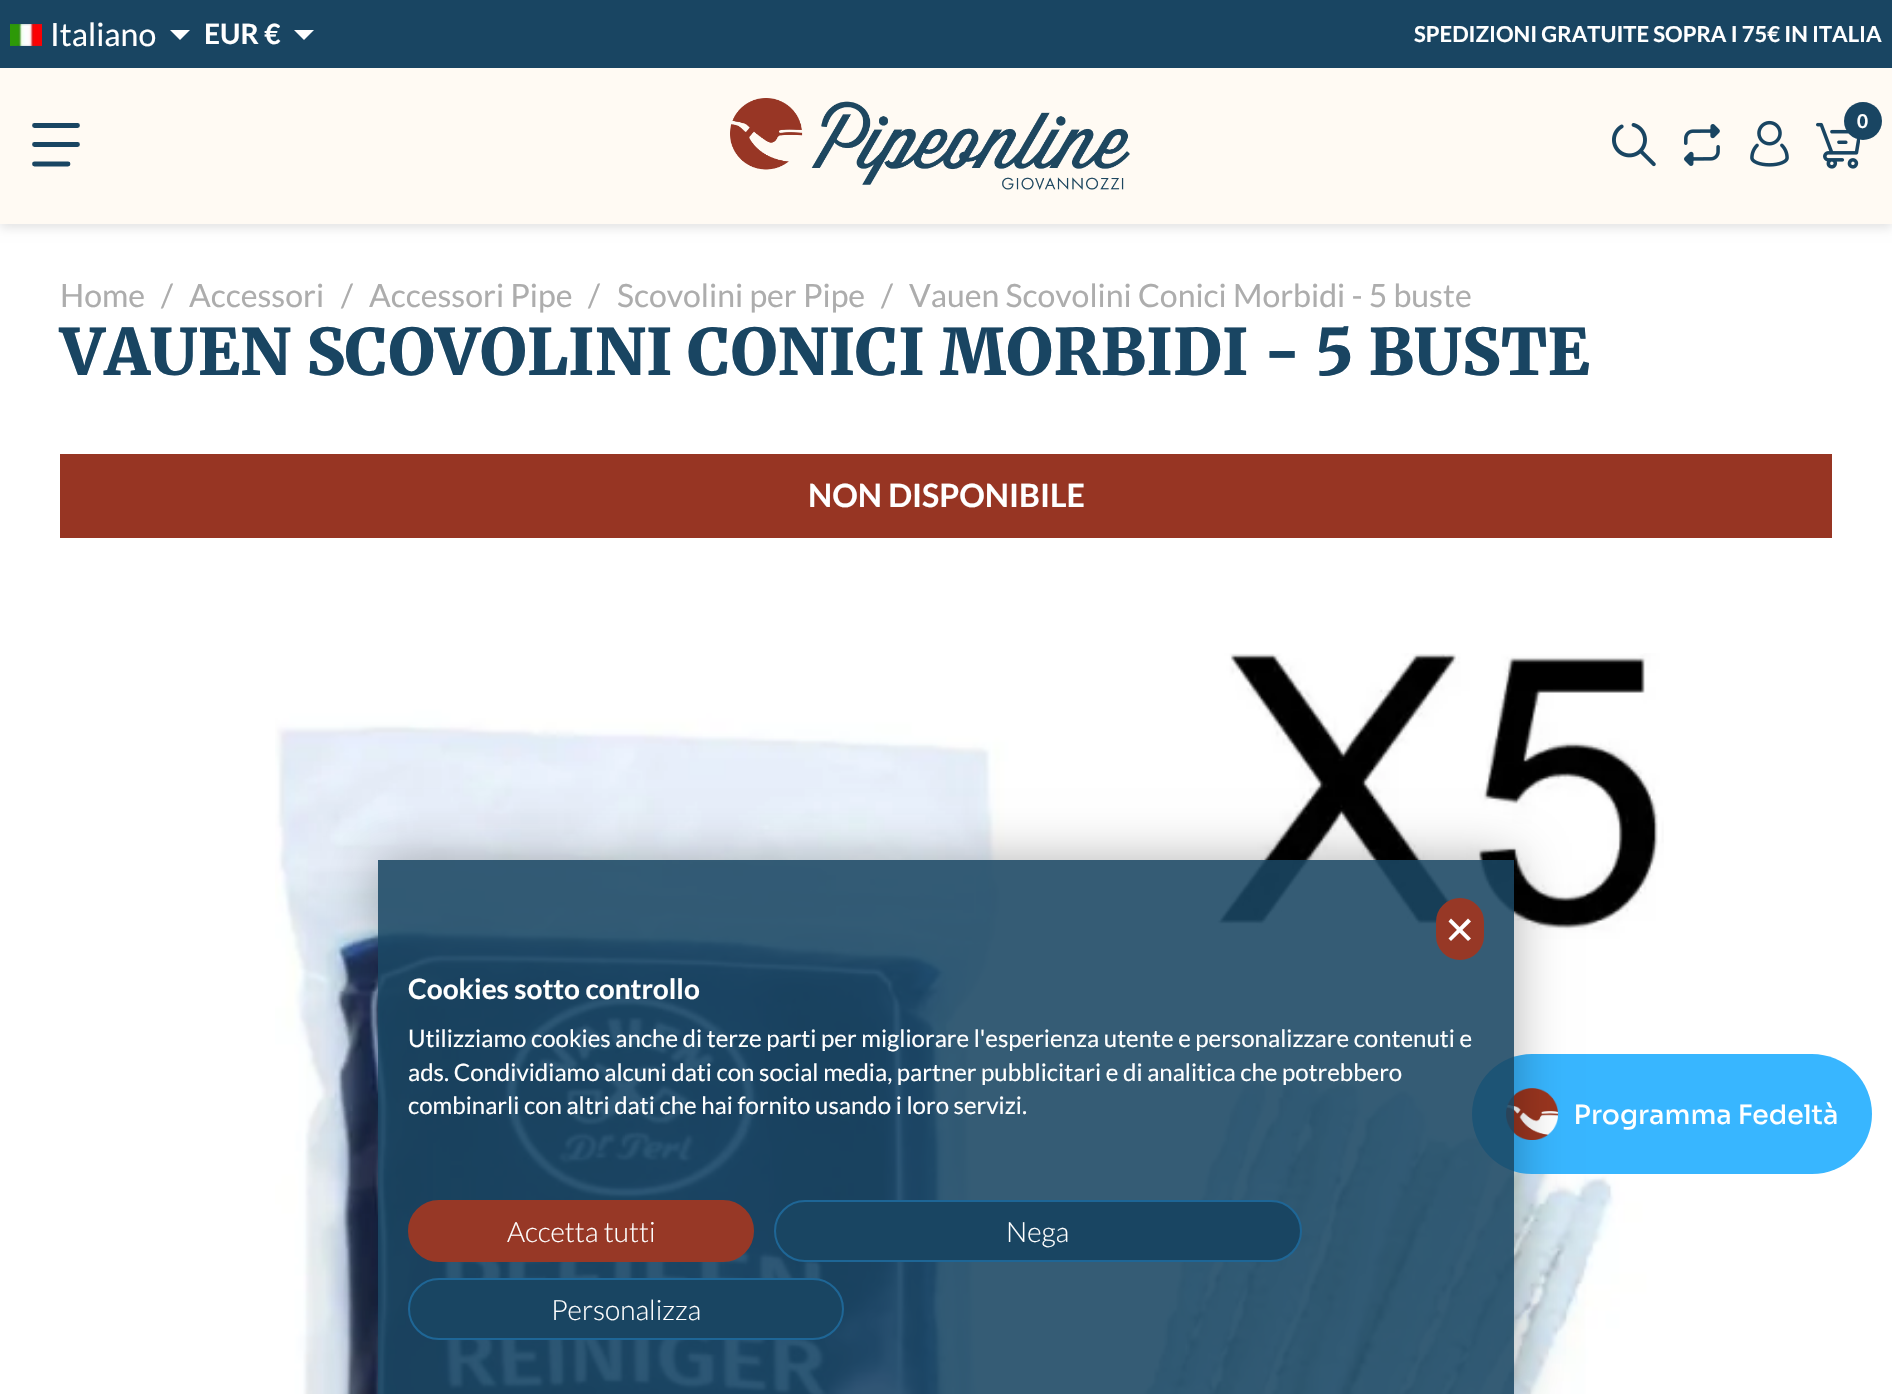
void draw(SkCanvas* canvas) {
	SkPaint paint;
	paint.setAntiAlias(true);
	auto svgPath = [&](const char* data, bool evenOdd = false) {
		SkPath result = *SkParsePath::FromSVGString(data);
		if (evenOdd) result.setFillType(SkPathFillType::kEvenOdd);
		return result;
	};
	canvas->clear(0xffffffff);
	paint.setColor(0x1c000000);
	paint.setMaskFilter(SkMaskFilter::MakeBlur(kNormal_SkBlurStyle, 5));
	canvas->drawRect(SkRect::MakeXYWH(0, 4, 1892, 224), paint);
	paint.setMaskFilter(nullptr);
	paint.setColor(0xff194562);
	canvas->drawRect(SkRect::MakeXYWH(0, 0, 1892, 68), paint);
	canvas->drawImageRect(SkImages::DeferredFromEncodedData(SkData::MakeFromFileName("img1.png")), SkRect::MakeXYWH(10, 24, 32, 22), SkSamplingOptions());
	SkFont f1(fontMgr->matchFamilyStyle("Lato", SkFontStyle::Normal()), 32);
	f1.setSubpixel(true);
	paint.setColor(0xffffffff);
	canvas->drawString("Italiano", 50, 46, f1, paint);
	canvas->drawPath(svgPath("M170 30H190L180 40Z"), paint);
	SkFont f2(fontMgr->matchFamilyStyle("Lato", SkFontStyle::Bold()), 28);
	f2.setSubpixel(true);
	canvas->drawString("EUR €", 204, 44, f2, paint);
	canvas->drawPath(svgPath("M294 30H314L304 40Z"), paint);
	SkFont f3(fontMgr->matchFamilyStyle("Lato", SkFontStyle::Bold()), 22);
	f3.setSubpixel(true);
	canvas->drawString("SPEDIZIONI GRATUITE SOPRA I 75€ IN ITALIA", 1414, 42, f3, paint);
	paint.setColor(0xfffffaf3);
	canvas->drawRect(SkRect::MakeXYWH(0, 68, 1892, 156), paint);
	canvas->drawImageRect(SkImages::DeferredFromEncodedData(SkData::MakeFromFileName("img2.png")), SkRect::MakeXYWH(730, 98, 400, 92), SkSamplingOptions());
	canvas->drawImageRect(SkImages::DeferredFromEncodedData(SkData::MakeFromFileName("img3.png")), SkRect::MakeXYWH(1612, 123, 44, 44), SkSamplingOptions());
	canvas->drawImageRect(SkImages::DeferredFromEncodedData(SkData::MakeFromFileName("img4.png")), SkRect::MakeXYWH(1684, 124, 36, 42), SkSamplingOptions());
	canvas->drawImageRect(SkImages::DeferredFromEncodedData(SkData::MakeFromFileName("img5.png")), SkRect::MakeXYWH(1750, 120, 39, 47), SkSamplingOptions());
	canvas->drawImageRect(SkImages::DeferredFromEncodedData(SkData::MakeFromFileName("img6.png")), SkRect::MakeXYWH(1816, 122, 44, 47), SkSamplingOptions());
	paint.setColor(0xff194562);
	canvas->drawCircle(1863, 121, 19, paint);
	SkFont f4(fontMgr->matchFamilyStyle("Lato", SkFontStyle::Bold()), 19);
	f4.setSubpixel(true);
	paint.setColor(0xffffffff);
	canvas->drawString("0", 1857, 128, f4, paint);
	paint.setStroke(true);
	paint.setStrokeWidth(4.8);
	paint.setStrokeCap(SkPaint::kRound_Cap);
	paint.setColor(0xff194562);
	canvas->drawPath(svgPath("M34.5 125.5H77.5M34.5 144.5H77.5M34.5 164H68"), paint);
	paint.setStroke(false);
	paint.setColor(0xffadadad);
	canvas->drawString("Home", 60, 307, f1, paint);
	canvas->drawString("/", 161, 307, f1, paint);
	canvas->drawString("Accessori", 189, 307, f1, paint);
	canvas->drawString("/", 341, 307, f1, paint);
	canvas->drawString("Accessori Pipe", 369, 307, f1, paint);
	canvas->drawString("/", 588, 307, f1, paint);
	canvas->drawString("Scovolini per Pipe", 617, 307, f1, paint);
	canvas->drawString("/", 881, 307, f1, paint);
	canvas->drawString("Vauen Scovolini Conici Morbidi - 5 buste", 909, 307, f1, paint);
	SkFont f5(fontMgr->matchFamilyStyle("Merriweather", SkFontStyle(900, SkFontStyle::kNormal_Width, SkFontStyle::kUpright_Slant)), 64);
	f5.setSubpixel(true);
	paint.setColor(0xff194562);
	canvas->drawString("VAUEN SCOVOLINI CONICI MORBIDI - 5 BUSTE", 60, 375, f5, paint);
	paint.setColor(0xff973523);
	canvas->drawRect(SkRect::MakeXYWH(60, 454, 1772, 84), paint);
	SkFont f6(fontMgr->matchFamilyStyle("Lato", SkFontStyle::Bold()), 32);
	f6.setSubpixel(true);
	paint.setColor(0xffffffff);
	canvas->drawString("NON DISPONIBILE", 808, 507, f6, paint);
	canvas->drawImageRect(SkImages::DeferredFromEncodedData(SkData::MakeFromFileName("img7.png")), SkRect::MakeXYWH(275, 653, 1389, 741), SkSamplingOptions());
	canvas->drawImageRect(SkImages::DeferredFromEncodedData(SkData::MakeFromFileName("img8.png")), SkRect::MakeXYWH(1472, 1054, 400, 120), SkSamplingOptions());
	canvas->save();
	canvas->clipPath(svgPath("M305 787H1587V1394H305ZM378 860H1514V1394H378Z", true), true);
	paint.setColor(0x4d000000);
	paint.setMaskFilter(SkMaskFilter::MakeBlur(kNormal_SkBlurStyle, 24));
	canvas->drawRect(SkRect::MakeXYWH(378, 860, 1136, 534), paint);
	paint.setMaskFilter(nullptr);
	canvas->restore();
	paint.setColor(0xe0194562);
	canvas->drawRect(SkRect::MakeXYWH(378, 860, 1136, 534), paint);
	paint.setColor(0xff973826);
	canvas->drawRoundRect(SkRect::MakeXYWH(1437, 899, 46, 60), 23, 23, paint);
	paint.setStroke(true);
	paint.setStrokeWidth(2);
	paint.setStrokeCap(SkPaint::kButt_Cap);
	canvas->drawRoundRect(SkRect::MakeXYWH(1437, 899, 46, 60), 23, 23, paint);
	paint.setStroke(false);
	paint.setColor(0xffffffff);
	canvas->drawPath(svgPath("M1468 918.5L1471 921.5L1451 941L1448.5 938.5Z"), paint);
	canvas->drawPath(svgPath("M1448.5 921.5L1451 918.5L1471 938.5L1468 941Z"), paint);
	canvas->drawString("Cookies sotto controllo", 408, 999, f2, paint);
	SkFont f7(fontMgr->matchFamilyStyle("Lato", SkFontStyle::Normal()), 24);
	f7.setSubpixel(true);
	canvas->drawString("Utilizziamo cookies anche di terze parti per migliorare l'esperienza utente e personalizzare contenuti e", 408, 1047, f7, paint);
	canvas->drawString("ads. Condividiamo alcuni dati con social media, partner pubblicitari e di analitica che potrebbero", 408, 1081, f7, paint);
	canvas->drawString("combinarli con altri dati che hai fornito usando i loro servizi.", 408, 1114, f7, paint);
	paint.setColor(0xff973826);
	canvas->drawRoundRect(SkRect::MakeXYWH(409, 1201, 344, 60), 30, 30, paint);
	paint.setStroke(true);
	canvas->drawRoundRect(SkRect::MakeXYWH(409, 1201, 344, 60), 30, 30, paint);
	SkFont f8(fontMgr->matchFamilyStyle("Lato", SkFontStyle(300, SkFontStyle::kNormal_Width, SkFontStyle::kUpright_Slant)), 28);
	f8.setSubpixel(true);
	paint.setStroke(false);
	paint.setColor(0xffffffff);
	canvas->drawString("Accetta tutti", 507, 1242, f8, paint);
	paint.setColor(0xff194562);
	canvas->drawRoundRect(SkRect::MakeXYWH(775, 1201, 526, 60), 30, 30, paint);
	paint.setStroke(true);
	paint.setColor(0xff1e6696);
	canvas->drawRoundRect(SkRect::MakeXYWH(775, 1201, 526, 60), 30, 30, paint);
	paint.setStroke(false);
	paint.setColor(0xffffffff);
	canvas->drawString("Nega", 1006, 1242, f8, paint);
	paint.setColor(0xff194562);
	canvas->drawRoundRect(SkRect::MakeXYWH(409, 1279, 434, 60), 30, 30, paint);
	paint.setStroke(true);
	paint.setColor(0xff1e6696);
	canvas->drawRoundRect(SkRect::MakeXYWH(409, 1279, 434, 60), 30, 30, paint);
	paint.setStroke(false);
	paint.setColor(0xffffffff);
	canvas->drawString("Personalizza", 551, 1320, f8, paint);
}
